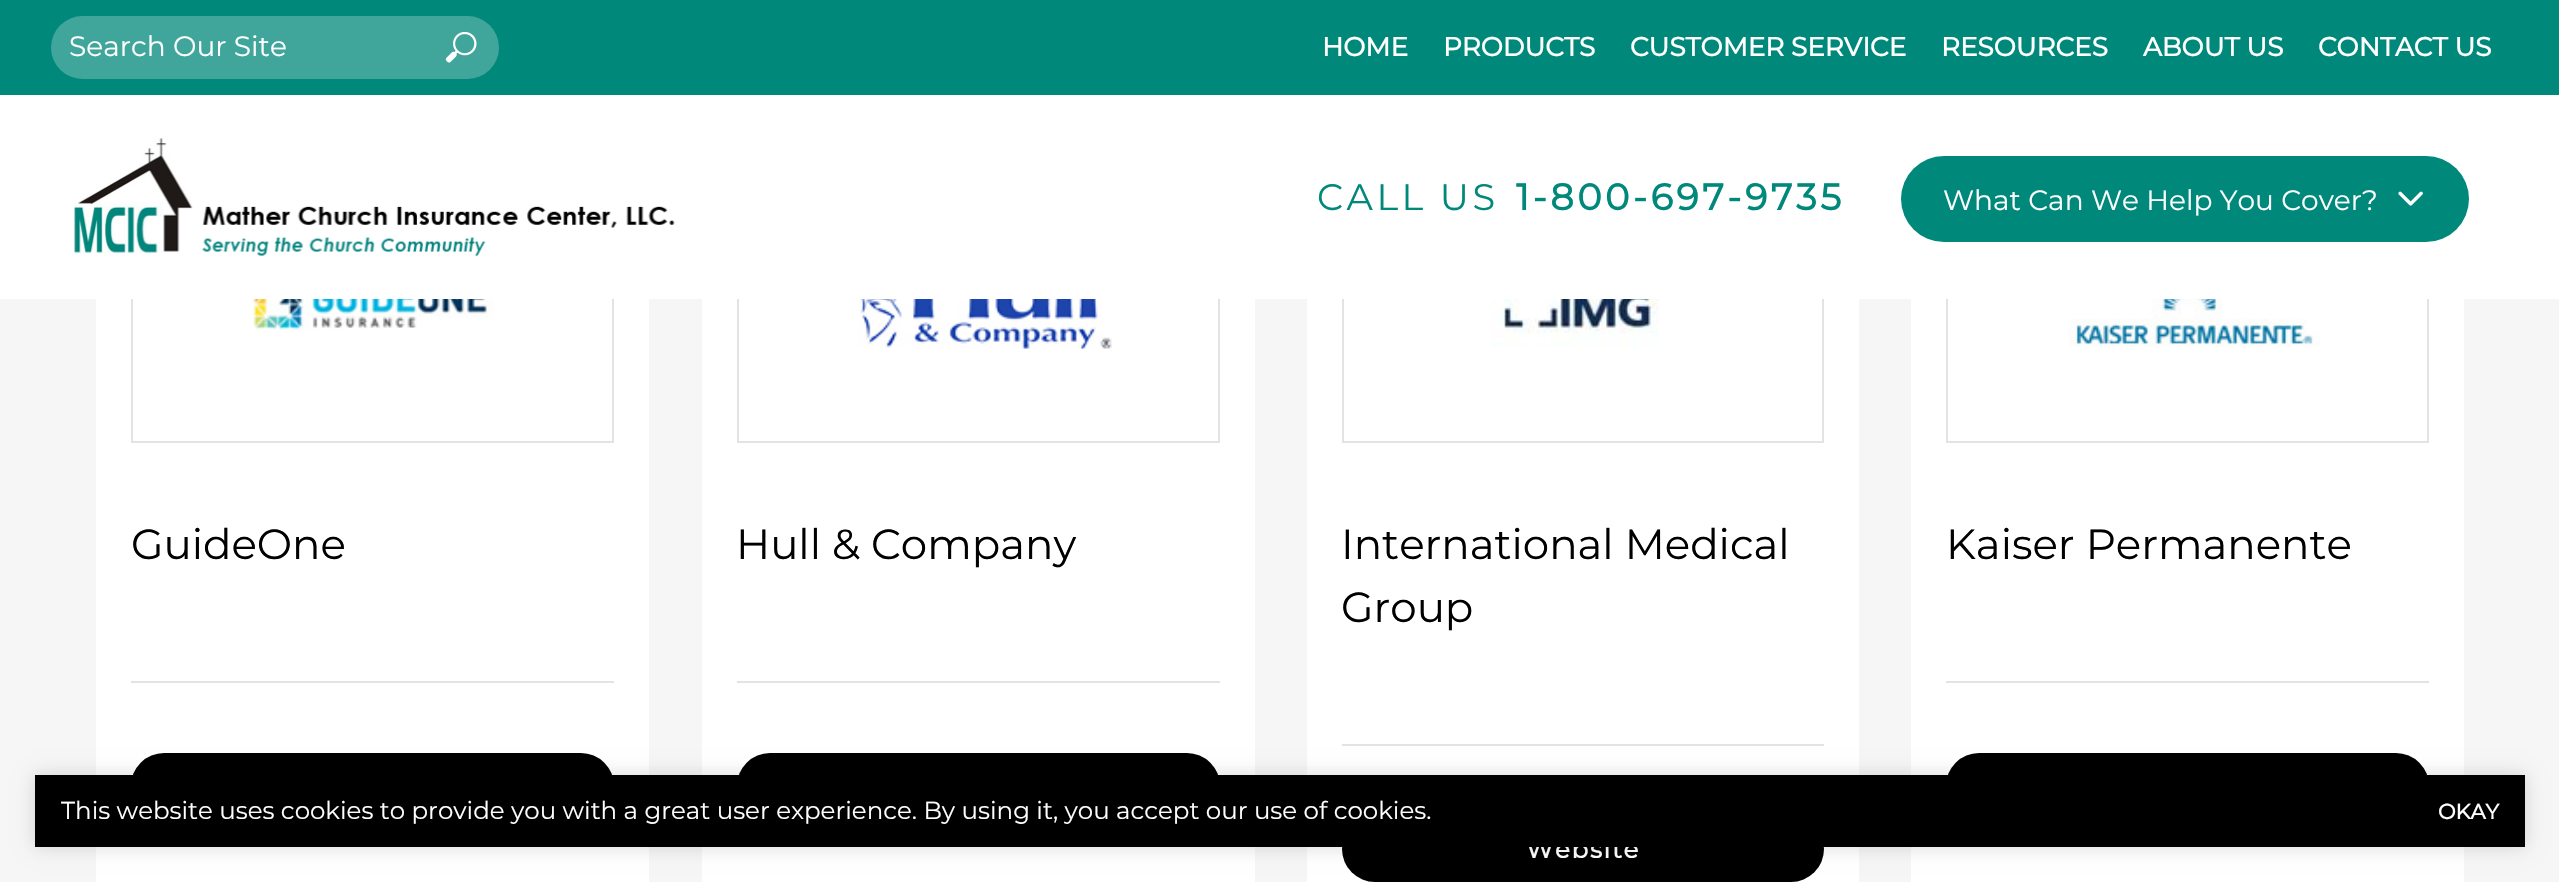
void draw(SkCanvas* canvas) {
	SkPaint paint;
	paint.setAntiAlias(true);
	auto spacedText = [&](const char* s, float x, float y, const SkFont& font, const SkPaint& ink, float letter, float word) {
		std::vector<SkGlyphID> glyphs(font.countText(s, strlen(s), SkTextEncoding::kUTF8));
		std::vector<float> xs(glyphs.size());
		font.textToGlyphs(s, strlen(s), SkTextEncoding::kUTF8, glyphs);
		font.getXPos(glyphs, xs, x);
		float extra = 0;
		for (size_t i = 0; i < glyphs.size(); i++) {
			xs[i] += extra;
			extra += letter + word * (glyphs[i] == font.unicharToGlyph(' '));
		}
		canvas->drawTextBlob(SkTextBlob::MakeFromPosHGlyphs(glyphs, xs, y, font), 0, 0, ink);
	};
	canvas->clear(0xfff6f6f6);
	paint.setColor(0xffffffff);
	canvas->drawRect(SkRect::MakeXYWH(96, 299, 553, 583), paint);
	paint.setStroke(true);
	paint.setStrokeWidth(2);
	paint.setColor(0xffe3e3e3);
	canvas->drawRect(SkRect::MakeXYWH(132, 164, 481, 278), paint);
	paint.setStroke(false);
	paint.setColor(0xffffffff);
	canvas->drawRect(SkRect::MakeXYWH(702, 299, 553, 583), paint);
	paint.setStroke(true);
	paint.setColor(0xffe3e3e3);
	canvas->drawRect(SkRect::MakeXYWH(738, 164, 481, 278), paint);
	paint.setStroke(false);
	paint.setColor(0xffffffff);
	canvas->drawRect(SkRect::MakeXYWH(1307, 299, 552, 583), paint);
	paint.setStroke(true);
	paint.setColor(0xffe3e3e3);
	canvas->drawRect(SkRect::MakeXYWH(1343, 164, 480, 278), paint);
	paint.setStroke(false);
	paint.setColor(0xffffffff);
	canvas->drawRect(SkRect::MakeXYWH(1911, 299, 553, 583), paint);
	paint.setStroke(true);
	paint.setColor(0xffe3e3e3);
	canvas->drawRect(SkRect::MakeXYWH(1947, 164, 481, 278), paint);
	paint.setStroke(false);
	paint.setColor(0xffffffff);
	canvas->drawRect(SkRect::MakeXYWH(0, 95, 2559, 204), paint);
	paint.setColor(0xff00887b);
	canvas->drawRect(SkRect::MakeXYWH(0, 0, 2559, 95), paint);
	paint.setColor(0xff40a69c);
	canvas->drawRoundRect(SkRect::MakeXYWH(51, 16, 448, 63), 31.5, 31.5, paint);
	SkFont f1(fontMgr->matchFamilyStyle("Montserrat", SkFontStyle(100, SkFontStyle::kNormal_Width, SkFontStyle::kUpright_Slant)), 28);
	f1.setSubpixel(true);
	paint.setColor(0xffffffff);
	canvas->drawString("Search Our Site", 69, 56, f1, paint);
	canvas->drawImageRect(SkImages::DeferredFromEncodedData(SkData::MakeFromFileName("img1.png")), SkRect::MakeXYWH(445, 31, 32, 32), SkSamplingOptions());
	SkFont f2(fontMgr->matchFamilyStyle("Montserrat", SkFontStyle::Bold()), 26.25);
	f2.setSubpixel(true);
	canvas->drawString("HOME", 1322, 56, f2, paint);
	canvas->drawString("PRODUCTS", 1443, 56, f2, paint);
	canvas->drawString("CUSTOMER SERVICE", 1630, 56, f2, paint);
	canvas->drawString("RESOURCES", 1941, 56, f2, paint);
	canvas->drawString("ABOUT US", 2143, 56, f2, paint);
	canvas->drawString("CONTACT US", 2318, 56, f2, paint);
	canvas->drawImageRect(SkImages::DeferredFromEncodedData(SkData::MakeFromFileName("img2.png")), SkRect::MakeXYWH(74, 138, 601, 118), SkSamplingOptions());
	SkFont f3(fontMgr->matchFamilyStyle("Montserrat", SkFontStyle(100, SkFontStyle::kNormal_Width, SkFontStyle::kUpright_Slant)), 36.75);
	f3.setSubpixel(true);
	paint.setColor(0xff00887b);
	spacedText("CALL US", 1317, 210, f3, paint, 3.5, 0);
	SkFont f4(fontMgr->matchFamilyStyle("Montserrat", SkFontStyle::Bold()), 36.75);
	f4.setSubpixel(true);
	spacedText("1-800-697-9735", 1516, 210, f4, paint, 3.5, 0);
	canvas->drawRoundRect(SkRect::MakeXYWH(1901, 156, 568, 86), 43, 43, paint);
	paint.setColor(0xffffffff);
	canvas->drawString("What Can We Help You Cover?", 1943, 210, f1, paint);
	canvas->drawImageRect(SkImages::DeferredFromEncodedData(SkData::MakeFromFileName("img3.png")), SkRect::MakeXYWH(2398, 191, 25, 15), SkSamplingOptions());
	canvas->drawImageRect(SkImages::DeferredFromEncodedData(SkData::MakeFromFileName("img4.png")), SkRect::MakeXYWH(253, 299, 241, 31), SkSamplingOptions());
	SkFont f5(fontMgr->matchFamilyStyle("Montserrat", SkFontStyle(100, SkFontStyle::kNormal_Width, SkFontStyle::kUpright_Slant)), 42);
	f5.setSubpixel(true);
	paint.setColor(0xff000000);
	canvas->drawString("GuideOne", 131, 559, f5, paint);
	paint.setColor(0xffe3e3e3);
	canvas->drawRect(SkRect::MakeXYWH(131, 681, 483, 2), paint);
	paint.setColor(0xff000000);
	canvas->drawRoundRect(SkRect::MakeXYWH(131, 753, 483, 66), 33, 33, paint);
	canvas->drawImageRect(SkImages::DeferredFromEncodedData(SkData::MakeFromFileName("img5.png")), SkRect::MakeXYWH(845, 299, 267, 50), SkSamplingOptions());
	canvas->drawString("Hull & Company", 736, 559, f5, paint);
	paint.setColor(0xffe3e3e3);
	canvas->drawRect(SkRect::MakeXYWH(737, 681, 483, 2), paint);
	paint.setColor(0xff000000);
	canvas->drawRoundRect(SkRect::MakeXYWH(737, 753, 483, 66), 33, 33, paint);
	canvas->drawImageRect(SkImages::DeferredFromEncodedData(SkData::MakeFromFileName("img6.png")), SkRect::MakeXYWH(1491, 299, 168, 48), SkSamplingOptions());
	canvas->drawString("International Medical", 1341, 559, f5, paint);
	canvas->drawString("Group", 1341, 622, f5, paint);
	paint.setColor(0xffe3e3e3);
	canvas->drawRect(SkRect::MakeXYWH(1342, 744, 482, 2), paint);
	paint.setColor(0xff000000);
	canvas->drawRoundRect(SkRect::MakeXYWH(1342, 816, 482, 66), 33, 33, paint);
	SkFont f6(fontMgr->matchFamilyStyle("Montserrat", SkFontStyle::Bold()), 24.5);
	f6.setSubpixel(true);
	paint.setColor(0xffffffff);
	spacedText("Website", 1526, 858, f6, paint, 1.75, 0);
	canvas->drawImageRect(SkImages::DeferredFromEncodedData(SkData::MakeFromFileName("img7.png")), SkRect::MakeXYWH(2068, 299, 252, 48), SkSamplingOptions());
	paint.setColor(0xff000000);
	canvas->drawString("Kaiser Permanente", 1946, 559, f5, paint);
	paint.setColor(0xffe3e3e3);
	canvas->drawRect(SkRect::MakeXYWH(1946, 681, 483, 2), paint);
	paint.setColor(0xff000000);
	canvas->drawRoundRect(SkRect::MakeXYWH(1946, 753, 483, 66), 33, 33, paint);
	paint.setColor(0x26000000);
	paint.setMaskFilter(SkMaskFilter::MakeBlur(kNormal_SkBlurStyle, 9));
	canvas->drawRect(SkRect::MakeXYWH(35, 775, 2490, 72), paint);
	paint.setMaskFilter(nullptr);
	paint.setColor(0xff000000);
	canvas->drawRect(SkRect::MakeXYWH(35, 775, 2490, 72), paint);
	SkFont f7(fontMgr->matchFamilyStyle("Montserrat", SkFontStyle(100, SkFontStyle::kNormal_Width, SkFontStyle::kUpright_Slant)), 24.5);
	f7.setSubpixel(true);
	paint.setColor(0xffffffff);
	canvas->drawString("This website uses cookies to provide you with a great user experience. By using it, you accept our use of cookies.", 61, 819, f7, paint);
	SkFont f8(fontMgr->matchFamilyStyle("Montserrat", SkFontStyle::Bold()), 21);
	f8.setSubpixel(true);
	canvas->drawString("OKAY", 2438, 819, f8, paint);
}
